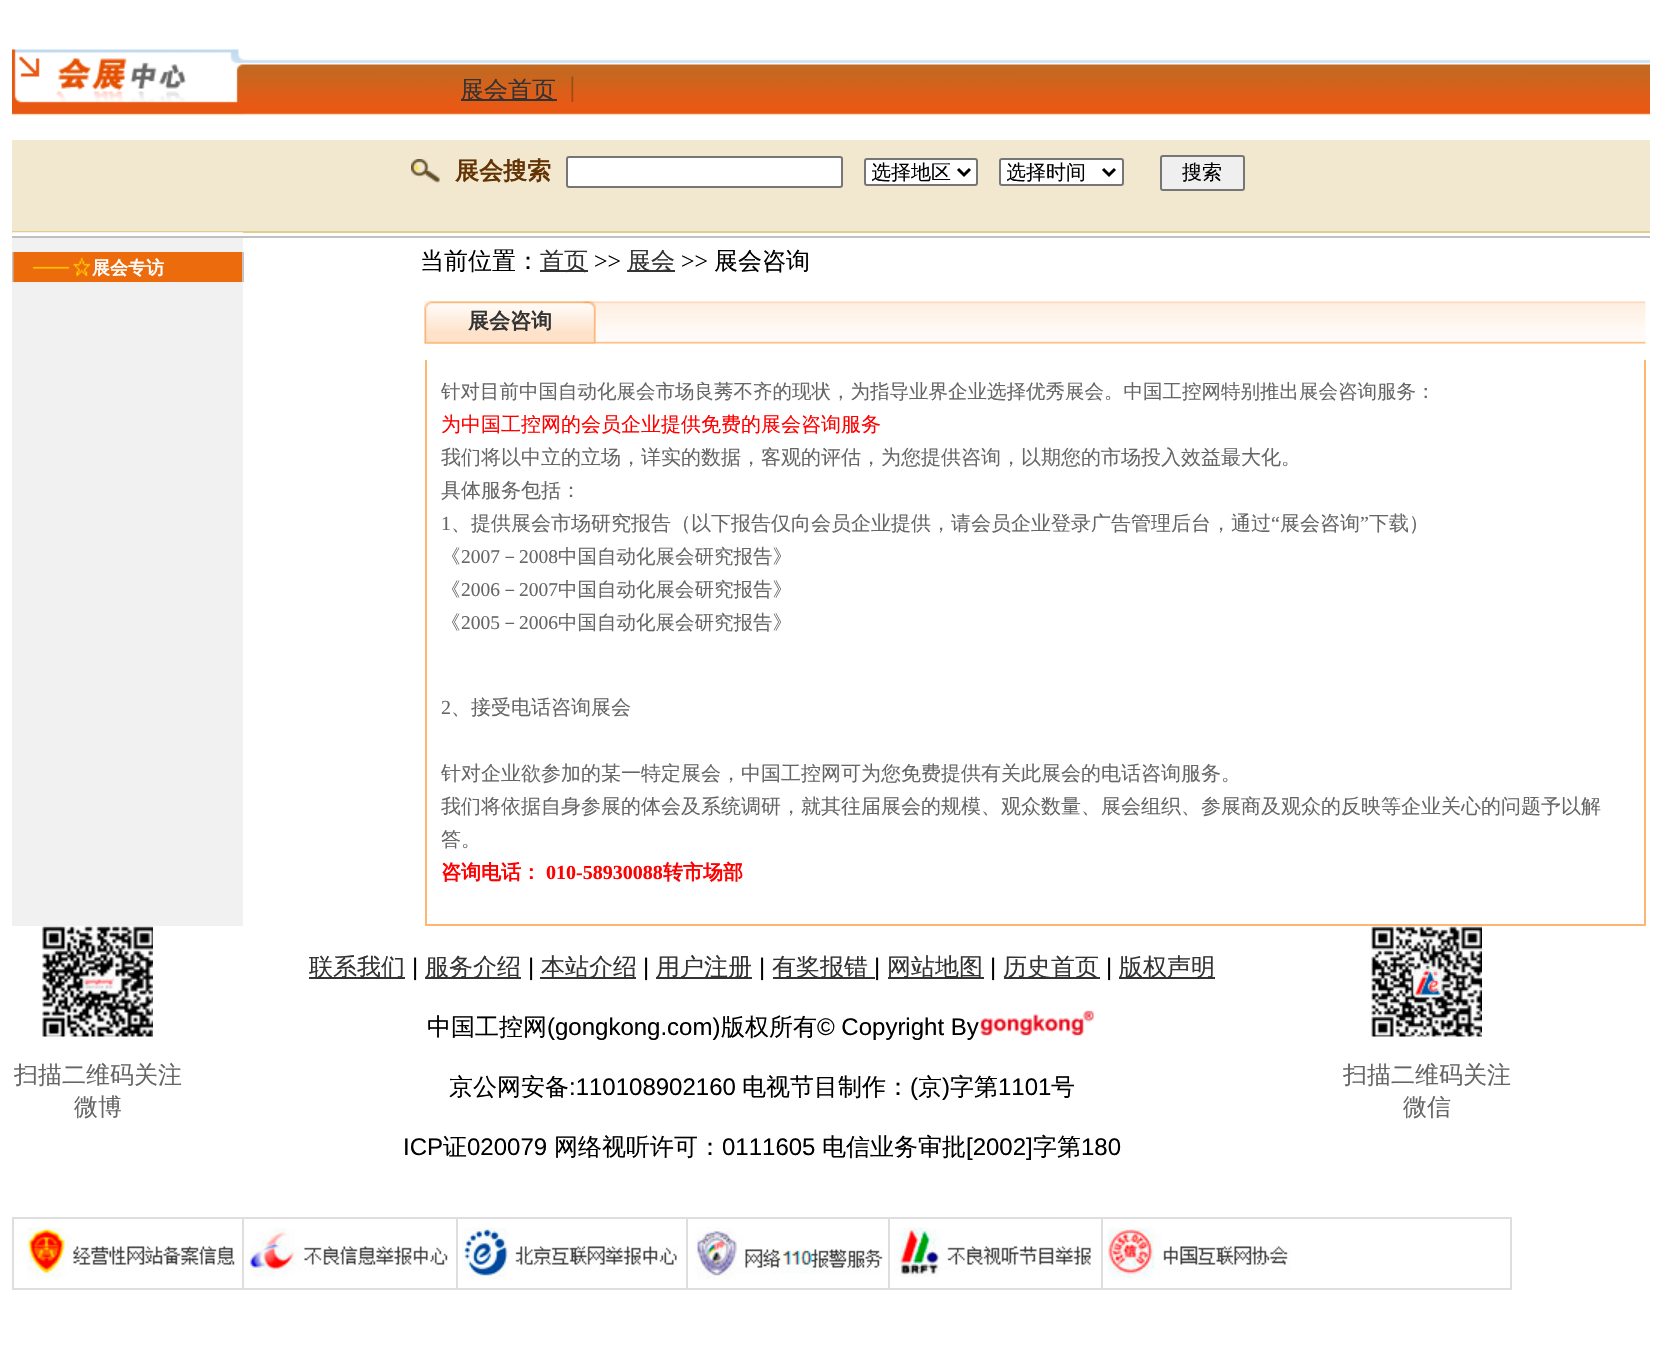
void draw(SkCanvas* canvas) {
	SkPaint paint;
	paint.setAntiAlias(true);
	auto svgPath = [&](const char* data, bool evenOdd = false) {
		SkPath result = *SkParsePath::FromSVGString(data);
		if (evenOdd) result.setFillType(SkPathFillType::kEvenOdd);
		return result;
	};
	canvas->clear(0xffffffff);
	canvas->drawImageRect(SkImages::DeferredFromEncodedData(SkData::MakeFromFileName("img1.png")), SkRect::MakeXYWH(12, 59, 1638, 57), SkSamplingOptions());
	canvas->drawImageRect(SkImages::DeferredFromEncodedData(SkData::MakeFromFileName("img2.png")), SkRect::MakeXYWH(12, 49, 233, 67), SkSamplingOptions());
	canvas->drawImageRect(SkImages::DeferredFromEncodedData(SkData::MakeFromFileName("img3.png")), SkRect::MakeXYWH(571, 76, 3, 26), SkSamplingOptions());
	paint.setColor(0xff333333);
	canvas->drawRect(SkRect::MakeXYWH(461, 99, 96, 2), paint);
	SkFont f1(fontMgr->matchFamilyStyle("WenQuanYi Zen Hei", SkFontStyle(500, SkFontStyle::kNormal_Width, SkFontStyle::kUpright_Slant)), 24);
	f1.setSubpixel(true);
	canvas->drawString("展会首页", 460, 98, f1, paint);
	paint.setColor(0xfff1e8cf);
	canvas->drawRect(SkRect::MakeXYWH(12, 140, 1638, 91), paint);
	paint.setColor(0xffe0ce8d);
	canvas->drawRect(SkRect::MakeXYWH(12, 231, 1638, 2), paint);
	canvas->drawImageRect(SkImages::DeferredFromEncodedData(SkData::MakeFromFileName("img4.png")), SkRect::MakeXYWH(411, 159, 29, 24), SkSamplingOptions());
	SkFont f2(fontMgr->matchFamilyStyle("WenQuanYi Zen Hei", SkFontStyle::Bold()), 24);
	f2.setSubpixel(true);
	paint.setColor(0xff633303);
	canvas->drawString("展会搜索", 455, 179, f2, paint);
	paint.setColor(0xffffffff);
	canvas->drawRoundRect(SkRect::MakeXYWH(567, 157, 275, 30), 2, 2, paint);
	paint.setStroke(true);
	paint.setStrokeWidth(2);
	paint.setColor(0xff767676);
	canvas->drawRoundRect(SkRect::MakeXYWH(567, 157, 275, 30), 2, 2, paint);
	paint.setStroke(false);
	paint.setColor(0xffffffff);
	canvas->drawRoundRect(SkRect::MakeXYWH(865, 159, 112, 26), 2, 2, paint);
	paint.setStroke(true);
	paint.setColor(0xff767676);
	canvas->drawRoundRect(SkRect::MakeXYWH(865, 159, 112, 26), 2, 2, paint);
	paint.setStrokeWidth(3);
	paint.setColor(0xff000000);
	canvas->drawPath(svgPath("M958 169L964 175L970 169"), paint);
	canvas->save();
	canvas->clipRect(SkRect::MakeXYWH(872, 159, 81, 26));
	SkFont f3(fontMgr->matchFamilyStyle("WenQuanYi Zen Hei", SkFontStyle(500, SkFontStyle::kNormal_Width, SkFontStyle::kUpright_Slant)), 20);
	f3.setSubpixel(true);
	paint.setStroke(false);
	canvas->drawString("选择地区", 871, 179, f3, paint);
	canvas->restore();
	paint.setColor(0xffffffff);
	canvas->drawRoundRect(SkRect::MakeXYWH(1000, 159, 123, 26), 2, 2, paint);
	paint.setStroke(true);
	paint.setStrokeWidth(2);
	paint.setColor(0xff767676);
	canvas->drawRoundRect(SkRect::MakeXYWH(1000, 159, 123, 26), 2, 2, paint);
	paint.setStrokeWidth(3);
	paint.setColor(0xff000000);
	canvas->drawPath(svgPath("M1103 169L1109 175L1115 169"), paint);
	canvas->save();
	canvas->clipRect(SkRect::MakeXYWH(1007, 159, 91, 26));
	paint.setStroke(false);
	canvas->drawString("选择时间", 1006, 179, f3, paint);
	canvas->restore();
	paint.setColor(0xffefefef);
	canvas->drawRoundRect(SkRect::MakeXYWH(1161, 156, 83, 34), 2, 2, paint);
	paint.setStroke(true);
	paint.setStrokeWidth(2);
	paint.setColor(0xff767676);
	canvas->drawRoundRect(SkRect::MakeXYWH(1161, 156, 83, 34), 2, 2, paint);
	paint.setStroke(false);
	paint.setColor(0xff000000);
	canvas->drawString("搜索", 1182, 179, f3, paint);
	paint.setColor(0xfff1f1f1);
	canvas->drawRect(SkRect::MakeXYWH(12, 232, 231, 694), paint);
	paint.setColor(0xffffffff);
	canvas->drawRect(SkRect::MakeXYWH(12, 233, 231, 3), paint);
	paint.setColor(0xffc0c0c0);
	canvas->drawRect(SkRect::MakeXYWH(12, 236, 1638, 2), paint);
	paint.setColor(0xffc5c5c5);
	canvas->drawRect(SkRect::MakeXYWH(242, 252, 2, 30), paint);
	canvas->drawRect(SkRect::MakeXYWH(12, 252, 2, 30), paint);
	paint.setColor(0xffec6b0d);
	canvas->drawRect(SkRect::MakeXYWH(91, 252, 151, 30), paint);
	canvas->drawImageRect(SkImages::DeferredFromEncodedData(SkData::MakeFromFileName("img5.png")), SkRect::MakeXYWH(13, 252, 78, 30), SkSamplingOptions());
	SkFont f4(fontMgr->matchFamilyStyle("WenQuanYi Zen Hei", SkFontStyle::Bold()), 18);
	f4.setSubpixel(true);
	paint.setColor(0xffffffff);
	canvas->drawString("展会专访", 92, 274, f4, paint);
	paint.setColor(0xff000000);
	canvas->drawString("当前位置：", 420, 269, f1, paint);
	paint.setColor(0xff333333);
	canvas->drawRect(SkRect::MakeXYWH(540, 270, 48, 2), paint);
	canvas->drawString("首页", 540, 269, f1, paint);
	SkFont f5(fontMgr->matchFamilyStyle("Liberation Serif", SkFontStyle::Normal()), 24);
	f5.setSubpixel(true);
	paint.setColor(0xff000000);
	canvas->drawString(">>", 594, 269, f5, paint);
	paint.setColor(0xff333333);
	canvas->drawRect(SkRect::MakeXYWH(627, 270, 48, 2), paint);
	canvas->drawString("展会", 627, 269, f1, paint);
	paint.setColor(0xff000000);
	canvas->drawString(">>", 681, 269, f5, paint);
	canvas->drawString("展会咨询", 714, 269, f1, paint);
	canvas->drawImageRect(SkImages::DeferredFromEncodedData(SkData::MakeFromFileName("img6.png")), SkRect::MakeXYWH(424, 301, 1222, 43), SkSamplingOptions());
	canvas->drawImageRect(SkImages::DeferredFromEncodedData(SkData::MakeFromFileName("img7.png")), SkRect::MakeXYWH(424, 301, 172, 43), SkSamplingOptions());
	SkFont f6(fontMgr->matchFamilyStyle("WenQuanYi Zen Hei", SkFontStyle::Bold()), 21);
	f6.setSubpixel(true);
	paint.setColor(0xff333333);
	canvas->drawString("展会咨询", 468, 328, f6, paint);
	paint.setColor(0xfffdb773);
	canvas->drawRect(SkRect::MakeXYWH(1644, 360, 2, 566), paint);
	canvas->drawRect(SkRect::MakeXYWH(425, 924, 1221, 2), paint);
	canvas->drawRect(SkRect::MakeXYWH(425, 360, 2, 566), paint);
	SkFont f7(fontMgr->matchFamilyStyle("WenQuanYi Zen Hei", SkFontStyle(500, SkFontStyle::kNormal_Width, SkFontStyle::kUpright_Slant)), 19.5);
	f7.setSubpixel(true);
	paint.setColor(0xff666666);
	canvas->drawString("针对目前中国自动化展会市场良莠不齐的现状，为指导业界企业选择优秀展会。中国工控网特别推出展会咨询服务：", 441, 398, f7, paint);
	paint.setColor(0xffff0000);
	canvas->drawString("为中国工控网的会员企业提供免费的展会咨询服务", 441, 431, f3, paint);
	paint.setColor(0xff666666);
	canvas->drawString("我们将以中立的立场，详实的数据，客观的评估，为您提供咨询，以期您的市场投入效益最大化。", 441, 464, f3, paint);
	canvas->drawString("具体服务包括：", 441, 497, f3, paint);
	SkFont f8(fontMgr->matchFamilyStyle("Liberation Serif", SkFontStyle::Normal()), 20);
	f8.setSubpixel(true);
	canvas->drawString("1", 441, 530, f8, paint);
	canvas->drawString("、提供展会市场研究报告（以下报告仅向会员企业提供，请会员企业登录广告管理后台，通过", 451, 530, f3, paint);
	canvas->drawString("“", 1271, 530, f8, paint);
	canvas->drawString("展会咨询", 1280, 530, f3, paint);
	canvas->drawString("”", 1360, 530, f8, paint);
	canvas->drawString("下载）", 1369, 530, f3, paint);
	canvas->drawString("《", 441, 563, f7, paint);
	SkFont f9(fontMgr->matchFamilyStyle("Liberation Serif", SkFontStyle::Normal()), 19.5);
	f9.setSubpixel(true);
	canvas->drawString("2007", 461, 563, f9, paint);
	canvas->drawString("－", 500, 563, f7, paint);
	canvas->drawString("2008", 519, 563, f9, paint);
	canvas->drawString("中国自动化展会研究报告》", 558, 563, f7, paint);
	canvas->drawString("《", 441, 596, f7, paint);
	canvas->drawString("2006", 461, 596, f9, paint);
	canvas->drawString("－", 500, 596, f7, paint);
	canvas->drawString("2007", 519, 596, f9, paint);
	canvas->drawString("中国自动化展会研究报告》", 558, 596, f7, paint);
	canvas->drawString("《", 441, 629, f7, paint);
	canvas->drawString("2005", 461, 629, f9, paint);
	canvas->drawString("－", 500, 629, f7, paint);
	canvas->drawString("2006", 519, 629, f9, paint);
	canvas->drawString("中国自动化展会研究报告》", 558, 629, f7, paint);
	canvas->drawString("2", 441, 714, f8, paint);
	canvas->drawString("、接受电话咨询展会", 451, 714, f3, paint);
	canvas->drawString("针对企业欲参加的某一特定展会，中国工控网可为您免费提供有关此展会的电话咨询服务。", 441, 780, f3, paint);
	canvas->drawString("我们将依据自身参展的体会及系统调研，就其往届展会的规模、观众数量、展会组织、参展商及观众的反映等企业关心的问题予以解", 441, 813, f3, paint);
	canvas->drawString("答。", 441, 846, f3, paint);
	SkFont f10(fontMgr->matchFamilyStyle("WenQuanYi Zen Hei", SkFontStyle::Bold()), 20);
	f10.setSubpixel(true);
	paint.setColor(0xffff0000);
	canvas->drawString("咨询电话：", 441, 879, f10, paint);
	SkFont f11(fontMgr->matchFamilyStyle("Liberation Serif", SkFontStyle::Bold()), 20);
	f11.setSubpixel(true);
	canvas->drawString("010-58930088", 546, 879, f11, paint);
	canvas->drawString("转市场部", 663, 879, f10, paint);
	canvas->drawImageRect(SkImages::DeferredFromEncodedData(SkData::MakeFromFileName("img8.png")), SkRect::MakeXYWH(42, 926, 111, 111), SkSamplingOptions());
	paint.setColor(0xff666666);
	canvas->drawString("扫描二维码关注", 14, 1083, f1, paint);
	canvas->drawString("微博", 74, 1115, f1, paint);
	paint.setColor(0xff333333);
	canvas->drawRect(SkRect::MakeXYWH(309, 977, 96, 2), paint);
	canvas->drawString("联系我们", 309, 975, f1, paint);
	SkFont f12(fontMgr->matchFamilyStyle("Liberation Sans", SkFontStyle::Normal()), 24);
	f12.setSubpixel(true);
	paint.setColor(0xff000000);
	canvas->drawString("|", 412, 975, f12, paint);
	paint.setColor(0xff333333);
	canvas->drawRect(SkRect::MakeXYWH(425, 977, 96, 2), paint);
	canvas->drawString("服务介绍", 425, 975, f1, paint);
	paint.setColor(0xff000000);
	canvas->drawString("|", 528, 975, f12, paint);
	paint.setColor(0xff333333);
	canvas->drawRect(SkRect::MakeXYWH(540, 977, 96, 2), paint);
	canvas->drawString("本站介绍", 541, 975, f1, paint);
	paint.setColor(0xff000000);
	canvas->drawString("|", 643, 975, f12, paint);
	paint.setColor(0xff333333);
	canvas->drawRect(SkRect::MakeXYWH(656, 977, 96, 2), paint);
	canvas->drawString("用户注册", 656, 975, f1, paint);
	paint.setColor(0xff000000);
	canvas->drawString("|", 759, 975, f12, paint);
	paint.setColor(0xff333333);
	canvas->drawRect(SkRect::MakeXYWH(773, 977, 102, 2), paint);
	canvas->drawString("有奖报错", 772, 975, f1, paint);
	paint.setColor(0xff000000);
	canvas->drawString("|", 874, 975, f12, paint);
	paint.setColor(0xff333333);
	canvas->drawRect(SkRect::MakeXYWH(888, 977, 96, 2), paint);
	canvas->drawString("网站地图", 887, 975, f1, paint);
	paint.setColor(0xff000000);
	canvas->drawString("|", 990, 975, f12, paint);
	paint.setColor(0xff333333);
	canvas->drawRect(SkRect::MakeXYWH(1004, 977, 96, 2), paint);
	canvas->drawString("历史首页", 1003, 975, f1, paint);
	paint.setColor(0xff000000);
	canvas->drawString("|", 1106, 975, f12, paint);
	paint.setColor(0xff333333);
	canvas->drawRect(SkRect::MakeXYWH(1119, 977, 96, 2), paint);
	canvas->drawString("版权声明", 1119, 975, f1, paint);
	paint.setColor(0xff000000);
	canvas->drawString("中国工控网", 427, 1035, f1, paint);
	canvas->drawString("(gongkong.com)", 547, 1035, f12, paint);
	canvas->drawString("版权所有", 721, 1035, f1, paint);
	canvas->drawString("© Copyright By", 817, 1035, f12, paint);
	canvas->drawImageRect(SkImages::DeferredFromEncodedData(SkData::MakeFromFileName("img9.png")), SkRect::MakeXYWH(980, 1010, 114, 26), SkSamplingOptions());
	canvas->drawString("京公网安备", 449, 1095, f1, paint);
	canvas->drawString(":110108902160", 569, 1095, f12, paint);
	canvas->drawString("电视节目制作：", 742, 1095, f1, paint);
	canvas->drawString("(", 910, 1095, f12, paint);
	canvas->drawString("京", 918, 1095, f1, paint);
	canvas->drawString(")", 942, 1095, f12, paint);
	canvas->drawString("字第", 950, 1095, f1, paint);
	canvas->drawString("1101", 998, 1095, f12, paint);
	canvas->drawString("号", 1051, 1095, f1, paint);
	canvas->drawString("ICP", 403, 1155, f12, paint);
	canvas->drawString("证", 443, 1155, f1, paint);
	canvas->drawString("020079", 467, 1155, f12, paint);
	canvas->drawString("网络视听许可：", 554, 1155, f1, paint);
	canvas->drawString("0111605", 722, 1155, f12, paint);
	canvas->drawString("电信业务审批", 822, 1155, f1, paint);
	canvas->drawString("[2002]", 966, 1155, f12, paint);
	canvas->drawString("字第", 1033, 1155, f1, paint);
	canvas->drawString("180", 1081, 1155, f12, paint);
	canvas->drawImageRect(SkImages::DeferredFromEncodedData(SkData::MakeFromFileName("img10.png")), SkRect::MakeXYWH(1371, 926, 111, 111), SkSamplingOptions());
	paint.setColor(0xff666666);
	canvas->drawString("扫描二维码关注", 1343, 1083, f1, paint);
	canvas->drawString("微信", 1403, 1115, f1, paint);
	paint.setStroke(true);
	paint.setColor(0xffdedede);
	canvas->drawRect(SkRect::MakeXYWH(13, 1218, 1498, 71), paint);
	paint.setStroke(false);
	canvas->drawRect(SkRect::MakeXYWH(242, 1218, 2, 71), paint);
	canvas->drawImageRect(SkImages::DeferredFromEncodedData(SkData::MakeFromFileName("img11.png")), SkRect::MakeXYWH(27, 1227, 208, 53), SkSamplingOptions());
	canvas->drawRect(SkRect::MakeXYWH(456, 1218, 2, 71), paint);
	canvas->drawImageRect(SkImages::DeferredFromEncodedData(SkData::MakeFromFileName("img12.png")), SkRect::MakeXYWH(247, 1227, 201, 50), SkSamplingOptions());
	canvas->drawRect(SkRect::MakeXYWH(686, 1218, 2, 71), paint);
	canvas->drawImageRect(SkImages::DeferredFromEncodedData(SkData::MakeFromFileName("img13.png")), SkRect::MakeXYWH(462, 1227, 216, 53), SkSamplingOptions());
	canvas->drawRect(SkRect::MakeXYWH(888, 1218, 2, 71), paint);
	canvas->drawImageRect(SkImages::DeferredFromEncodedData(SkData::MakeFromFileName("img14.png")), SkRect::MakeXYWH(695, 1227, 189, 53), SkSamplingOptions());
	canvas->drawRect(SkRect::MakeXYWH(1101, 1218, 2, 71), paint);
	canvas->drawImageRect(SkImages::DeferredFromEncodedData(SkData::MakeFromFileName("img15.png")), SkRect::MakeXYWH(894, 1227, 201, 50), SkSamplingOptions());
	canvas->drawImageRect(SkImages::DeferredFromEncodedData(SkData::MakeFromFileName("img16.png")), SkRect::MakeXYWH(1107, 1227, 184, 53), SkSamplingOptions());
}
